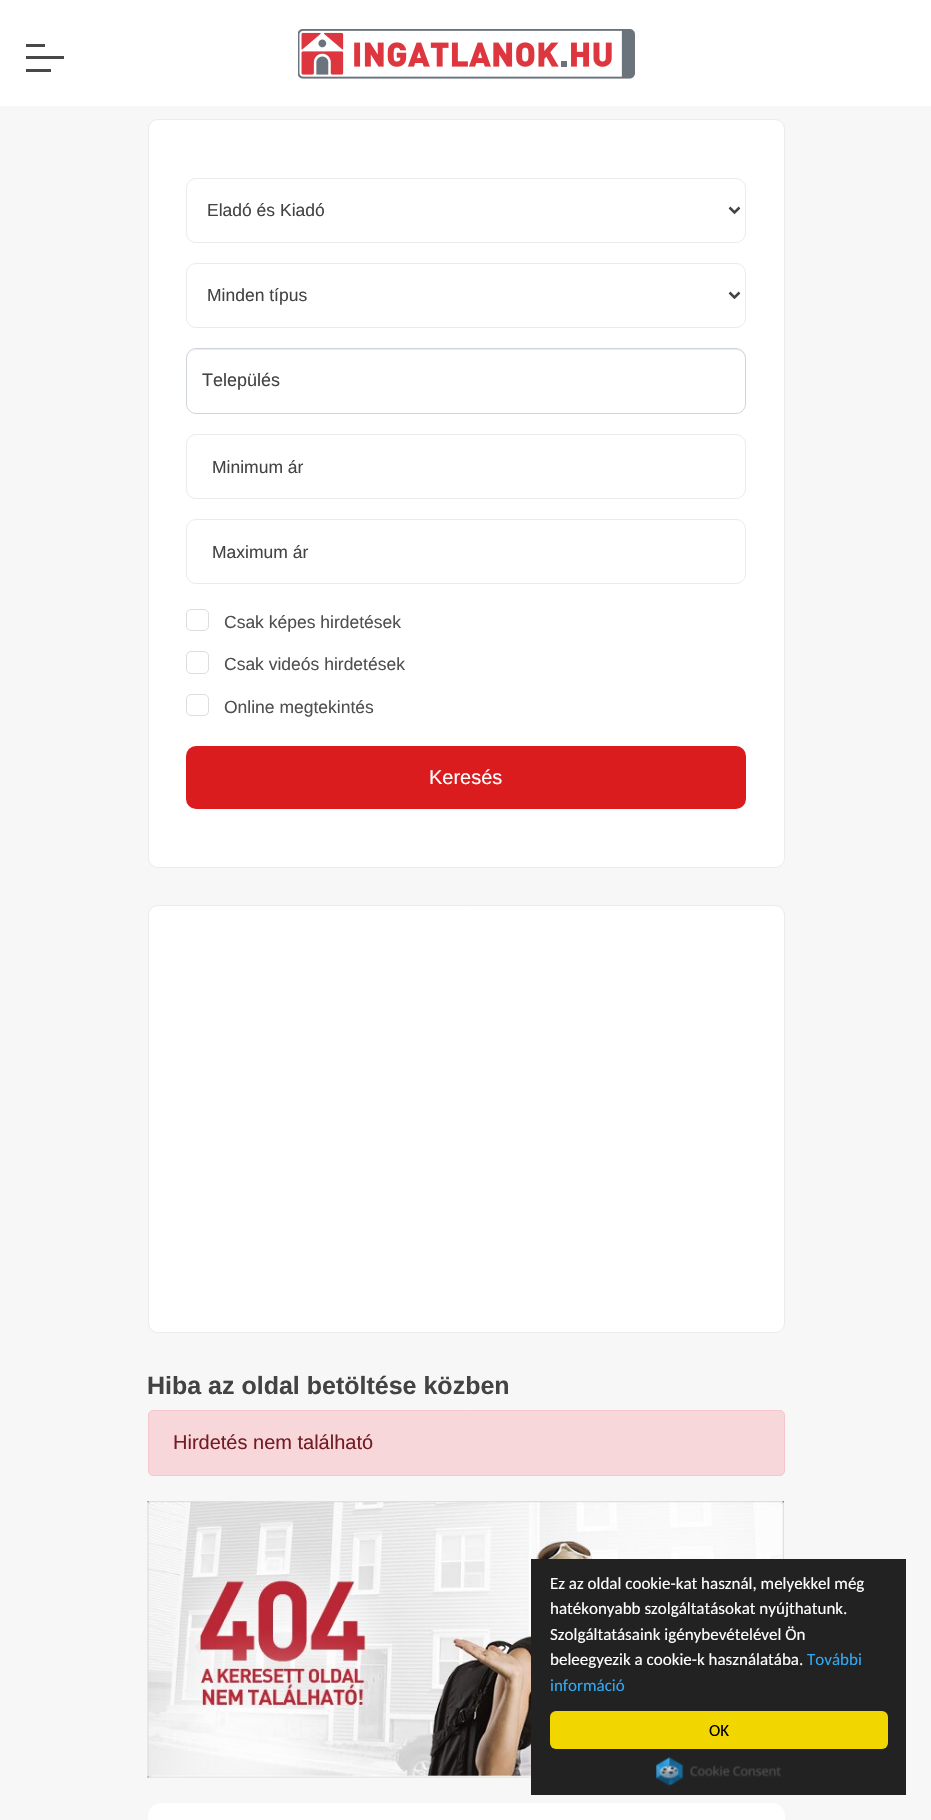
void draw(SkCanvas* canvas) {
	SkPaint paint;
	paint.setAntiAlias(true);
	auto svgPath = [&](const char* data, bool evenOdd = false) {
		SkPath result = *SkParsePath::FromSVGString(data);
		if (evenOdd) result.setFillType(SkPathFillType::kEvenOdd);
		return result;
	};
	canvas->clear(0xffffffff);
	paint.setColor(0xff484848);
	canvas->drawRect(SkRect::MakeXYWH(26, 44, 19, 3), paint);
	canvas->drawRect(SkRect::MakeXYWH(26, 56, 38, 3), paint);
	canvas->drawRect(SkRect::MakeXYWH(26, 69, 25, 3), paint);
	canvas->drawImageRect(SkImages::DeferredFromEncodedData(SkData::MakeFromFileName("img1.png")), SkRect::MakeXYWH(298, 29, 337, 50), SkSamplingOptions());
	paint.setColor(0xfff7f7f7);
	canvas->drawRect(SkRect::MakeXYWH(0, 106, 931, 1714), paint);
	paint.setColor(0xffffffff);
	canvas->drawRoundRect(SkRect::MakeXYWH(148.5, 119.5, 636, 748), 9.5, 9.5, paint);
	paint.setStroke(true);
	paint.setStrokeWidth(1);
	paint.setColor(0xffebebeb);
	canvas->drawRoundRect(SkRect::MakeXYWH(148.5, 119.5, 636, 748), 9.5, 9.5, paint);
	canvas->drawRoundRect(SkRect::MakeXYWH(186.5, 178.5, 559, 64), 9.5, 9.5, paint);
	paint.setStrokeWidth(2.5);
	paint.setColor(0xff434343);
	canvas->drawPath(svgPath("M729.5 207.5L734.5 212.5L739.5 207.5"), paint);
	SkFont f1(fontMgr->matchFamilyStyle("Liberation Sans", SkFontStyle::Normal()), 17.5);
	f1.setSubpixel(true);
	paint.setStroke(false);
	canvas->drawString("Eladó és Kiadó", 207, 216, f1, paint);
	paint.setStroke(true);
	paint.setStrokeWidth(1);
	paint.setColor(0xffebebeb);
	canvas->drawRoundRect(SkRect::MakeXYWH(186.5, 263.5, 559, 64), 9.5, 9.5, paint);
	paint.setStrokeWidth(2.5);
	paint.setColor(0xff434343);
	canvas->drawPath(svgPath("M729.5 292.5L734.5 297.5L739.5 292.5"), paint);
	paint.setStroke(false);
	canvas->drawString("Minden típus", 207, 301, f1, paint);
	paint.setColor(0xffececec);
	canvas->drawPath(svgPath("M196 350H736C741 350 745 354 745 359V358C745 353 741 349 736 349H197C192 349 188 353 188 358V359C188 354 191 350 196 350Z"), paint);
	paint.setStroke(true);
	paint.setStrokeWidth(1);
	paint.setColor(0xffced4da);
	canvas->drawRoundRect(SkRect::MakeXYWH(186.5, 348.5, 559, 65), 9.5, 9.5, paint);
	SkFont f2(fontMgr->matchFamilyStyle("Liberation Sans", SkFontStyle::Normal()), 18);
	f2.setSubpixel(true);
	paint.setStroke(false);
	paint.setColor(0xff434343);
	canvas->drawString("Település", 202, 386, f2, paint);
	paint.setStroke(true);
	paint.setColor(0xffebebeb);
	canvas->drawRoundRect(SkRect::MakeXYWH(186.5, 434.5, 559, 64), 9.5, 9.5, paint);
	paint.setStroke(false);
	paint.setColor(0xff434343);
	canvas->drawString("Minimum ár", 212, 473, f1, paint);
	paint.setStroke(true);
	paint.setColor(0xffebebeb);
	canvas->drawRoundRect(SkRect::MakeXYWH(186.5, 519.5, 559, 64), 9.5, 9.5, paint);
	paint.setStroke(false);
	paint.setColor(0xff434343);
	canvas->drawString("Maximum ár", 212, 558, f1, paint);
	paint.setStroke(true);
	paint.setColor(0xffdddddd);
	canvas->drawRoundRect(SkRect::MakeXYWH(186.5, 609.5, 22, 21), 4.5, 4.5, paint);
	paint.setStroke(false);
	paint.setColor(0xff4f4f4f);
	canvas->drawString("Csak képes hirdetések", 224, 628, f1, paint);
	paint.setStroke(true);
	paint.setColor(0xffdddddd);
	canvas->drawRoundRect(SkRect::MakeXYWH(186.5, 651.5, 22, 22), 4.5, 4.5, paint);
	paint.setStroke(false);
	paint.setColor(0xff4f4f4f);
	canvas->drawString("Csak videós hirdetések", 224, 670, f1, paint);
	paint.setStroke(true);
	paint.setColor(0xffdddddd);
	canvas->drawRoundRect(SkRect::MakeXYWH(186.5, 694.5, 22, 21), 4.5, 4.5, paint);
	paint.setStroke(false);
	paint.setColor(0xff4f4f4f);
	canvas->drawString("Online megtekintés", 224, 713, f1, paint);
	paint.setColor(0xffdb1c1f);
	canvas->drawRoundRect(SkRect::MakeXYWH(187.5, 747.5, 557, 60), 8.5, 8.5, paint);
	paint.setStroke(true);
	paint.setStrokeWidth(3);
	canvas->drawRoundRect(SkRect::MakeXYWH(187.5, 747.5, 557, 60), 8.5, 8.5, paint);
	SkFont f3(fontMgr->matchFamilyStyle("Liberation Sans", SkFontStyle::Normal()), 20);
	f3.setSubpixel(true);
	paint.setStroke(false);
	paint.setColor(0xffffffff);
	canvas->drawString("Keresés", 429, 784, f3, paint);
	canvas->drawRoundRect(SkRect::MakeXYWH(148.5, 905.5, 636, 427), 9.5, 9.5, paint);
	paint.setStroke(true);
	paint.setStrokeWidth(1);
	paint.setColor(0xffebebeb);
	canvas->drawRoundRect(SkRect::MakeXYWH(148.5, 905.5, 636, 427), 9.5, 9.5, paint);
	SkFont f4(fontMgr->matchFamilyStyle("Liberation Sans", SkFontStyle::Bold()), 25);
	f4.setSubpixel(true);
	paint.setStroke(false);
	paint.setColor(0xff434343);
	canvas->drawString("Hiba az oldal betöltése közben", 147, 1394, f4, paint);
	paint.setColor(0xfff8d7da);
	canvas->drawRoundRect(SkRect::MakeXYWH(148.5, 1410.5, 636, 65), 4.5, 4.5, paint);
	paint.setStroke(true);
	paint.setColor(0xfff5c6cb);
	canvas->drawRoundRect(SkRect::MakeXYWH(148.5, 1410.5, 636, 65), 4.5, 4.5, paint);
	paint.setStroke(false);
	paint.setColor(0xff721c24);
	canvas->drawString("Hirdetés nem található", 173, 1449, f3, paint);
	canvas->drawImageRect(SkImages::DeferredFromEncodedData(SkData::MakeFromFileName("img2.png")), SkRect::MakeXYWH(147, 1501, 637, 277), SkSamplingOptions());
	paint.setColor(0xffffffff);
	canvas->drawRoundRect(SkRect::MakeXYWH(148, 1803, 637, 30), 13, 13, paint);
	paint.setColor(0xff222222);
	canvas->drawRect(SkRect::MakeXYWH(531, 1559, 375, 236), paint);
	SkFont f5(fontMgr->matchFamilyStyle("Carlito", SkFontStyle::Normal()), 17);
	f5.setSubpixel(true);
	paint.setColor(0xffffffff);
	canvas->drawString("Ez az oldal cookie-kat használ, melyekkel még", 550, 1589, f5, paint);
	canvas->drawString("hatékonyabb szolgáltatásokat nyújthatunk.", 550, 1614, f5, paint);
	canvas->drawString("Szolgáltatásaink igénybevételével Ön", 550, 1640, f5, paint);
	canvas->drawString("beleegyezik a cookie-k használatába.", 550, 1665, f5, paint);
	paint.setColor(0xff31a8f0);
	canvas->drawString("További", 807, 1665, f5, paint);
	canvas->drawString("információ", 550, 1691, f5, paint);
	paint.setColor(0xfff1d600);
	canvas->drawRoundRect(SkRect::MakeXYWH(550, 1711, 338, 38), 6, 6, paint);
	paint.setColor(0xff000000);
	canvas->drawString("OK", 709, 1736, f5, paint);
	canvas->drawImageRect(SkImages::DeferredFromEncodedData(SkData::MakeFromFileName("img3.png")), SkRect::MakeXYWH(656, 1757, 125, 29), SkSamplingOptions());
}
